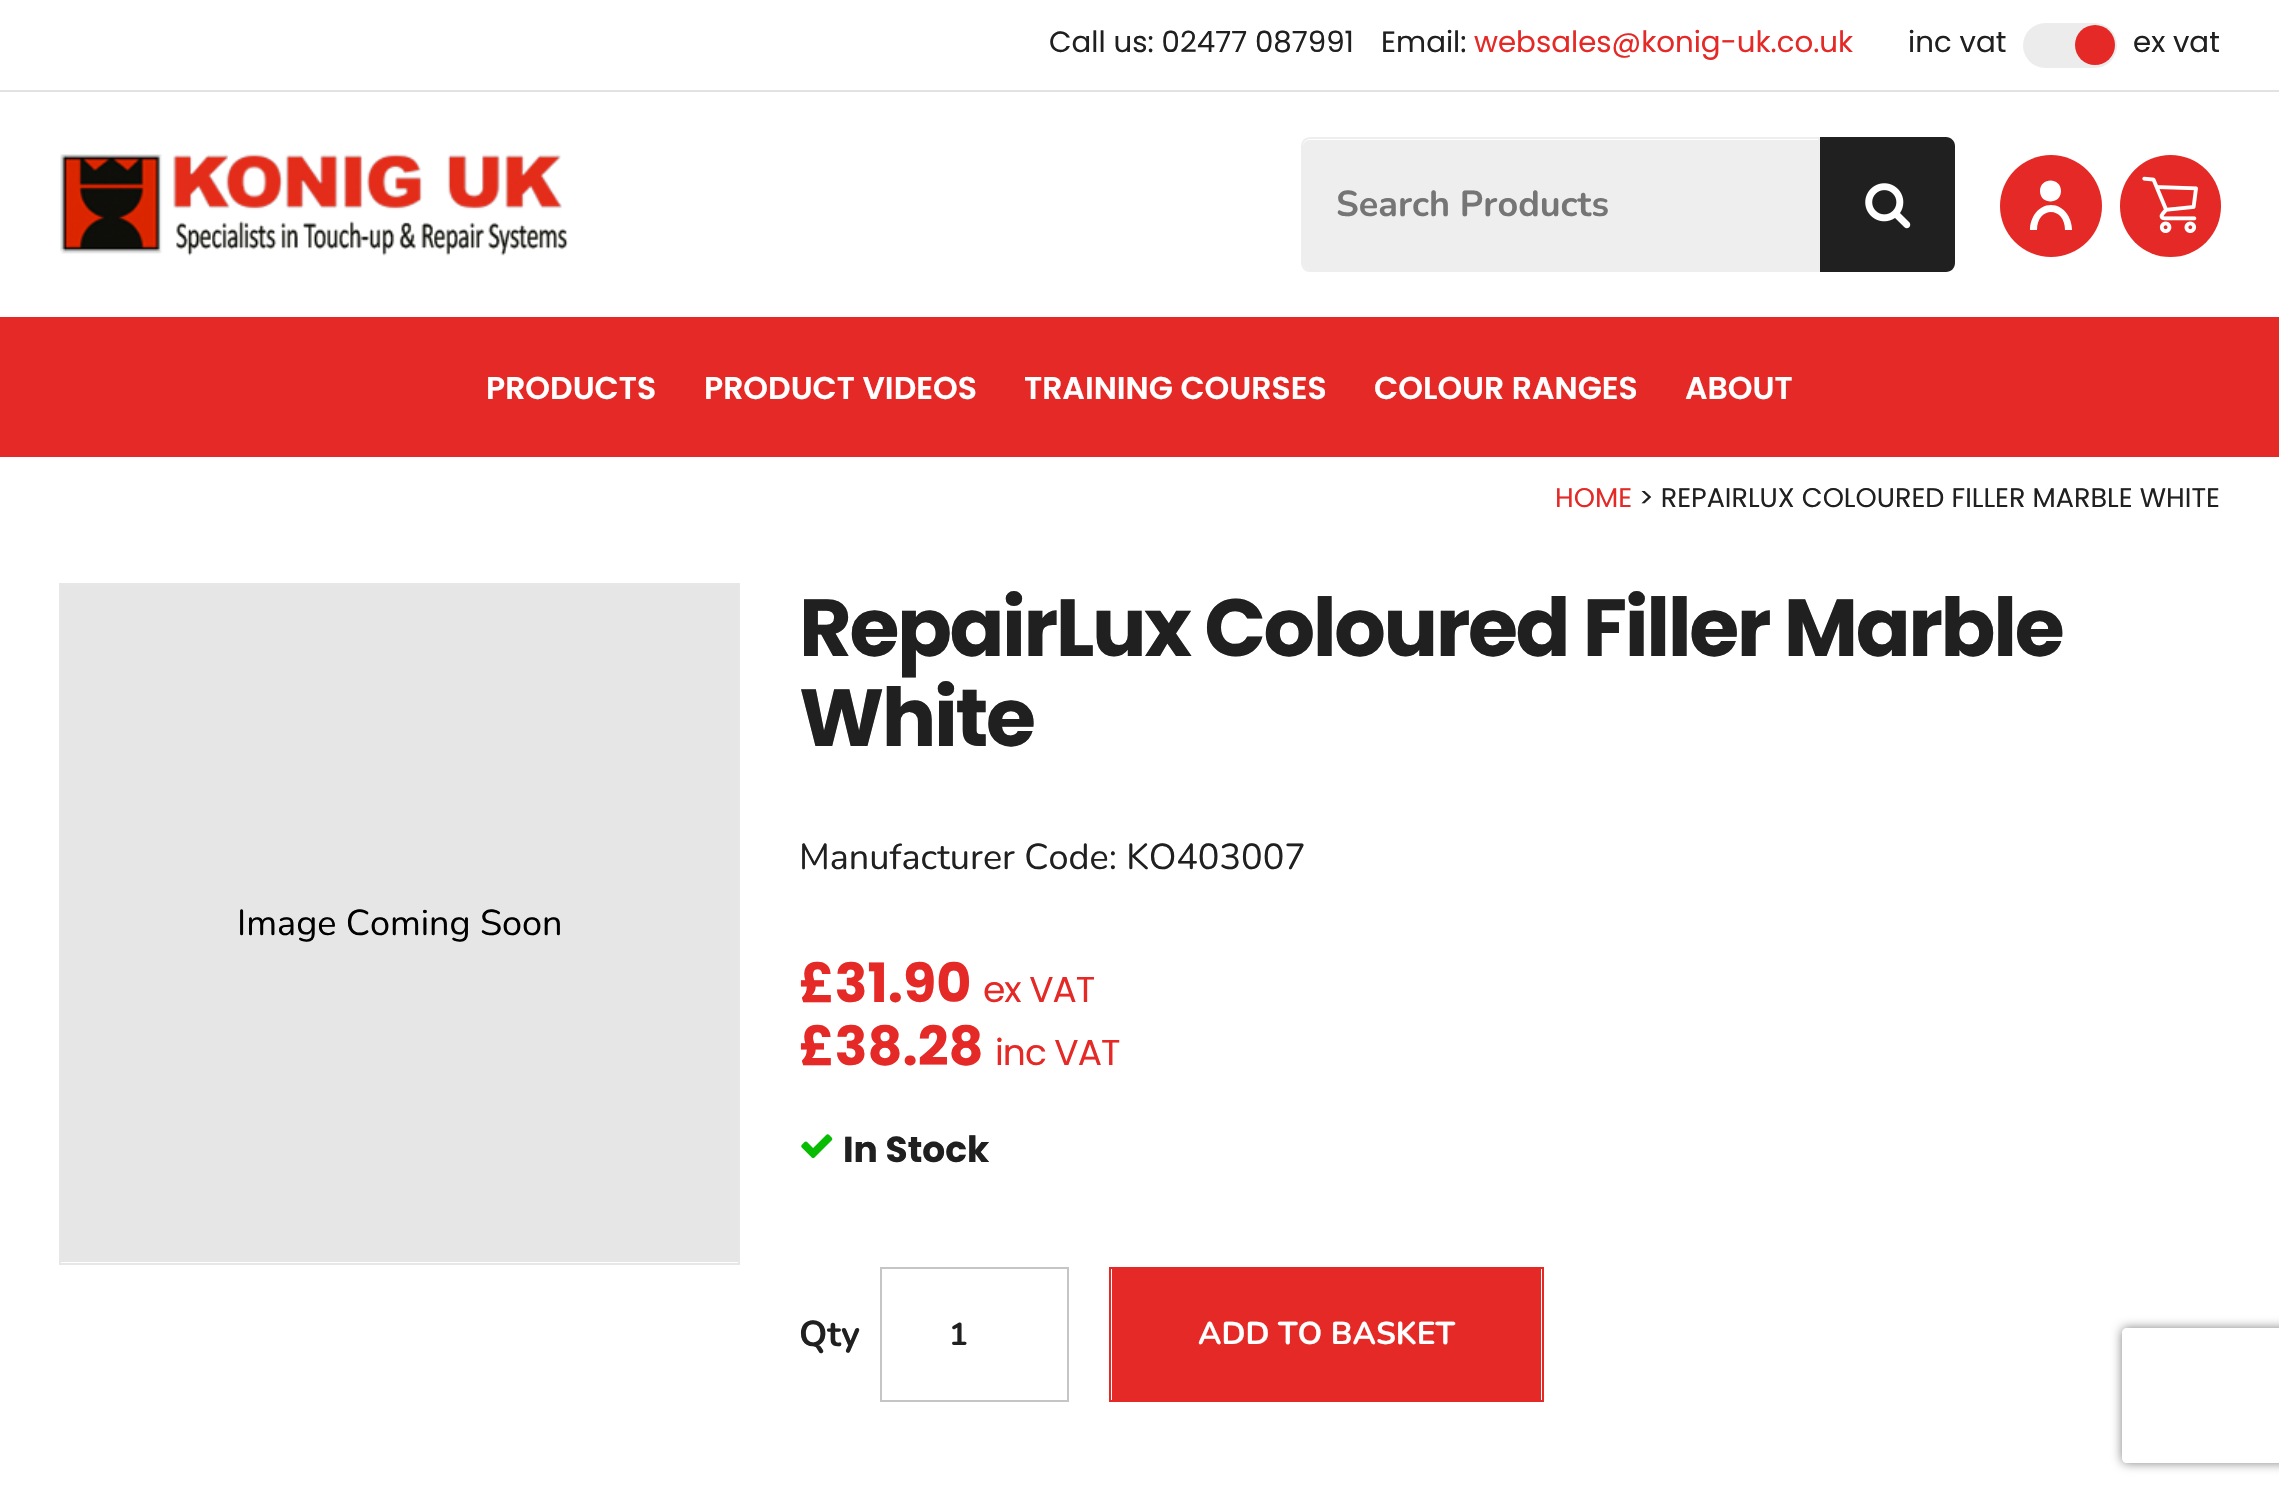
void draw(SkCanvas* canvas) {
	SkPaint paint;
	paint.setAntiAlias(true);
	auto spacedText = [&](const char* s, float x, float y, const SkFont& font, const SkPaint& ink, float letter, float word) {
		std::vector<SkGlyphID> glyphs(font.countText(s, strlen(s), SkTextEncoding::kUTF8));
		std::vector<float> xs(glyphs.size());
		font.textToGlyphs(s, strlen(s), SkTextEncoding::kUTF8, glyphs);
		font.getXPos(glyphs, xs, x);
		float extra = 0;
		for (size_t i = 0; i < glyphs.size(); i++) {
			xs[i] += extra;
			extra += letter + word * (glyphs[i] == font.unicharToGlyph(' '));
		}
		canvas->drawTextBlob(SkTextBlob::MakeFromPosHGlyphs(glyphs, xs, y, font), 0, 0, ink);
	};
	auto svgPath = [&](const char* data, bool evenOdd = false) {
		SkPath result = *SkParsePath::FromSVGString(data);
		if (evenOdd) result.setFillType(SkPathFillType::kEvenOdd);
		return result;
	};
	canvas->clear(0xffffffff);
	paint.setColor(0xffe2e2e2);
	canvas->drawRect(SkRect::MakeXYWH(0, 90, 2279, 2), paint);
	SkFont f1(fontMgr->matchFamilyStyle("Poppins", SkFontStyle::Normal()), 29.25);
	f1.setSubpixel(true);
	paint.setColor(0xff202020);
	canvas->drawString("Call us: 02477 087991", 1049, 52, f1, paint);
	canvas->drawString("Email:", 1381, 52, f1, paint);
	paint.setColor(0xffe42926);
	canvas->drawString("websales@konig-uk.co.uk", 1474, 52, f1, paint);
	paint.setColor(0xff202020);
	canvas->drawString("inc vat", 1908, 52, f1, paint);
	paint.setColor(0xffececec);
	canvas->drawRoundRect(SkRect::MakeXYWH(2023, 23, 94, 45), 22.5, 22.5, paint);
	paint.setColor(0xffe42926);
	canvas->drawCircle(2095, 45, 20, paint);
	paint.setColor(0xff202020);
	canvas->drawString("ex vat", 2133, 52, f1, paint);
	canvas->drawImageRect(SkImages::DeferredFromEncodedData(SkData::MakeFromFileName("img1.png")), SkRect::MakeXYWH(60, 154, 508, 102), SkSamplingOptions());
	paint.setColor(0xffeeeeee);
	canvas->drawPath(svgPath("M1310 140H1818V270H1310C1306 270 1303 267 1303 263V147C1303 143 1306 140 1310 140Z"), paint);
	paint.setStroke(true);
	paint.setStrokeWidth(2);
	canvas->drawPath(svgPath("M1310 138H1819V271H1310C1305.5 271 1302 267.5 1302 263V146C1302 141.5 1305.5 138 1310 138Z"), paint);
	SkFont f2(fontMgr->matchFamilyStyle("Nunito", SkFontStyle::Bold()), 36);
	f2.setSubpixel(true);
	paint.setStroke(false);
	paint.setColor(0xff757575);
	canvas->drawString("Search Products", 1336, 216, f2, paint);
	paint.setColor(0xff202020);
	canvas->drawPath(svgPath("M1820 137H1946C1951 137 1955 141 1955 146V263C1955 268 1951 272 1946 272H1820Z"), paint);
	canvas->drawImageRect(SkImages::DeferredFromEncodedData(SkData::MakeFromFileName("img2.png")), SkRect::MakeXYWH(1865, 183, 46, 46), SkSamplingOptions());
	paint.setColor(0xffe42926);
	canvas->drawCircle(2051, 206, 51, paint);
	paint.setColor(0xffffffff);
	canvas->drawPath(svgPath("M2040 191C2040 177 2061 177 2061 191C2061 205 2040 205 2040 191ZM2051 205C2038 205 2030 218 2030 230H2037C2037 206 2065 206 2065 230H2072C2072 218 2064 205 2051 205Z"), paint);
	paint.setColor(0xffe42926);
	canvas->drawRoundRect(SkRect::MakeXYWH(2120, 155, 101, 102), 50.5, 50.5, paint);
	canvas->drawImageRect(SkImages::DeferredFromEncodedData(SkData::MakeFromFileName("img3.png")), SkRect::MakeXYWH(2142, 176, 56, 57), SkSamplingOptions());
	canvas->drawRect(SkRect::MakeXYWH(0, 317, 2279, 140), paint);
	SkFont f3(fontMgr->matchFamilyStyle("Poppins", SkFontStyle(600, SkFontStyle::kNormal_Width, SkFontStyle::kUpright_Slant)), 31.5);
	f3.setSubpixel(true);
	paint.setColor(0xffffffff);
	canvas->drawString("PRODUCTS", 486, 399, f3, paint);
	canvas->drawString("PRODUCT VIDEOS", 704, 399, f3, paint);
	canvas->drawString("TRAINING COURSES", 1024, 399, f3, paint);
	canvas->drawString("COLOUR RANGES", 1374, 399, f3, paint);
	canvas->drawString("ABOUT", 1685, 399, f3, paint);
	SkFont f4(fontMgr->matchFamilyStyle("Poppins", SkFontStyle::Normal()), 27);
	f4.setSubpixel(true);
	paint.setColor(0xffe42926);
	canvas->drawString("HOME", 1555, 507, f4, paint);
	paint.setColor(0xff202020);
	canvas->drawString("> REPAIRLUX COLOURED FILLER MARBLE WHITE", 1639, 507, f4, paint);
	paint.setStroke(true);
	paint.setColor(0xffe7e7e7);
	canvas->drawRect(SkRect::MakeXYWH(60, 584, 679, 680), paint);
	paint.setStroke(false);
	paint.setColor(0xffe6e6e6);
	canvas->drawRect(SkRect::MakeXYWH(61, 585, 677, 677), paint);
	SkFont f5(fontMgr->matchFamilyStyle("Nunito", SkFontStyle::Normal()), 36);
	f5.setSubpixel(true);
	paint.setColor(0xff000000);
	canvas->drawString("Image Coming Soon", 237, 935, f5, paint);
	SkFont f6(fontMgr->matchFamilyStyle("Poppins", SkFontStyle::Bold()), 81);
	f6.setSubpixel(true);
	paint.setColor(0xff202020);
	spacedText("RepairLux Coloured Filler Marble", 799, 656, f6, paint, -2.4, 0);
	spacedText("White", 799, 746, f6, paint, -2.4, 0);
	canvas->drawString("Manufacturer Code: KO403007", 799, 869, f5, paint);
	SkFont f7(fontMgr->matchFamilyStyle("Poppins", SkFontStyle::Bold()), 54);
	f7.setSubpixel(true);
	paint.setColor(0xffe42926);
	canvas->drawString("£31.90", 799, 1002, f7, paint);
	SkFont f8(fontMgr->matchFamilyStyle("Poppins", SkFontStyle::Normal()), 36);
	f8.setSubpixel(true);
	spacedText("ex VAT", 983, 1002, f8, paint, -1, 0);
	canvas->drawString("£38.28", 799, 1065, f7, paint);
	spacedText("inc VAT", 995, 1065, f8, paint, -1, 0);
	canvas->drawImageRect(SkImages::DeferredFromEncodedData(SkData::MakeFromFileName("img4.png")), SkRect::MakeXYWH(801, 1134, 32, 25), SkSamplingOptions());
	SkFont f9(fontMgr->matchFamilyStyle("Poppins", SkFontStyle::Bold()), 36);
	f9.setSubpixel(true);
	paint.setColor(0xff202020);
	canvas->drawString("In Stock", 843, 1162, f9, paint);
	canvas->drawString("Qty", 799, 1346, f2, paint);
	paint.setStroke(true);
	paint.setColor(0xffc5c5c5);
	canvas->drawRect(SkRect::MakeXYWH(881, 1268, 187, 133), paint);
	SkFont f10(fontMgr->matchFamilyStyle("Nunito", SkFontStyle::Bold()), 31.5);
	f10.setSubpixel(true);
	paint.setStroke(false);
	paint.setColor(0xff202020);
	canvas->drawString("1", 949, 1345, f10, paint);
	paint.setColor(0xffe42926);
	canvas->drawRect(SkRect::MakeXYWH(1112, 1269, 429, 131), paint);
	paint.setStroke(true);
	canvas->drawRect(SkRect::MakeXYWH(1110, 1268, 433, 133), paint);
	paint.setStroke(false);
	paint.setColor(0xffffffff);
	canvas->drawString("ADD TO BASKET", 1198, 1344, f10, paint);
	canvas->save();
	canvas->clipPath(svgPath("M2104 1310H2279V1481H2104ZM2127 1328H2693C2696 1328 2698 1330 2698 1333V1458C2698 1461 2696 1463 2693 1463H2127C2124 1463 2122 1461 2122 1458V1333C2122 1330 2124 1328 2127 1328Z", true), true);
	paint.setColor(0xff808080);
	paint.setMaskFilter(SkMaskFilter::MakeBlur(kNormal_SkBlurStyle, 5.5));
	canvas->drawRoundRect(SkRect::MakeXYWH(2122, 1328, 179, 135), 5, 5, paint);
	paint.setMaskFilter(nullptr);
	canvas->restore();
}
